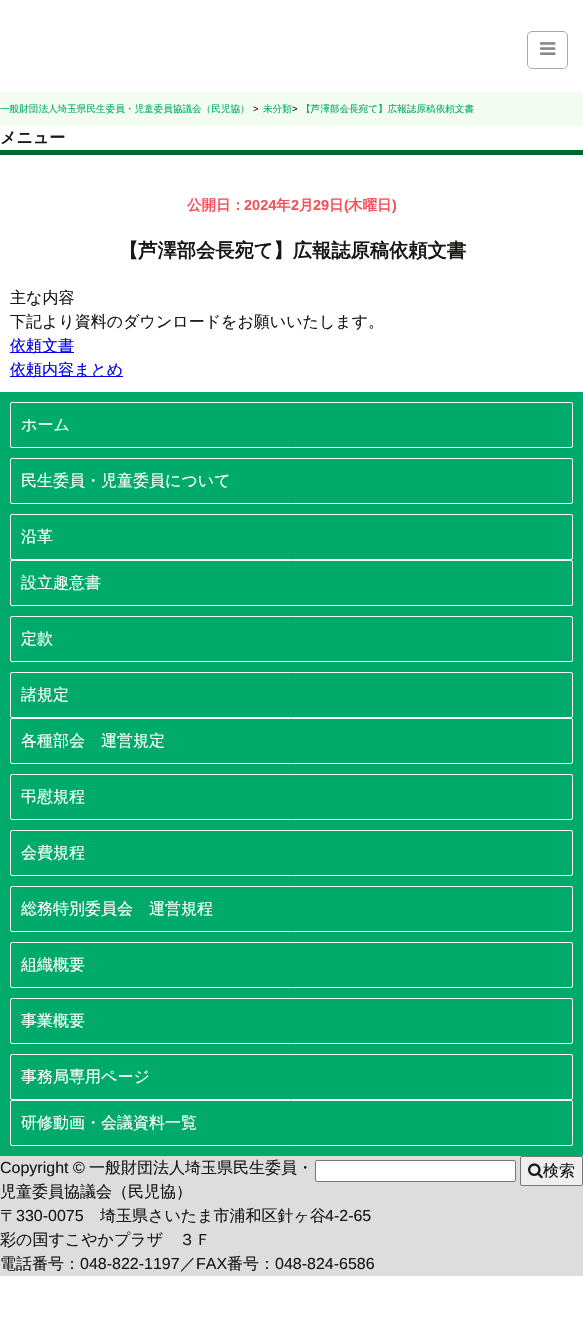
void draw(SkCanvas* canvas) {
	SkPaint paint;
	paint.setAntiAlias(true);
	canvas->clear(0xffffffff);
	paint.setStroke(true);
	paint.setStrokeWidth(1);
	paint.setColor(0xffaaaaaa);
	canvas->drawRoundRect(SkRect::MakeXYWH(527.5, 31.5, 40, 37), 4.5, 4.5, paint);
	canvas->drawImageRect(SkImages::DeferredFromEncodedData(SkData::MakeFromFileName("img1.png")), SkRect::MakeXYWH(540, 42, 16, 13), SkSamplingOptions());
	paint.setStroke(false);
	paint.setColor(0xfff3fcf0);
	canvas->drawRect(SkRect::MakeXYWH(0, 92, 583, 34), paint);
	SkFont f1(fontMgr->matchFamilyStyle("WenQuanYi Zen Hei", SkFontStyle(500, SkFontStyle::kNormal_Width, SkFontStyle::kUpright_Slant)), 9.6);
	f1.setSubpixel(true);
	paint.setColor(0xff00aa6b);
	canvas->drawString("一般財団法人埼玉県民生委員・児童委員協議会（民児協）", 0, 112, f1, paint);
	SkFont f2(fontMgr->matchFamilyStyle("Liberation Sans", SkFontStyle::Normal()), 9.6);
	f2.setSubpixel(true);
	paint.setColor(0xff191716);
	canvas->drawString(">", 253, 112, f2, paint);
	paint.setColor(0xff00aa6b);
	canvas->drawString("未分類", 263, 112, f1, paint);
	paint.setColor(0xff191716);
	canvas->drawString(">", 292, 112, f2, paint);
	paint.setColor(0xff00aa6b);
	canvas->drawString("【芦澤部会長宛て】広報誌原稿依頼文書", 301, 112, f1, paint);
	paint.setColor(0xff006633);
	canvas->drawRect(SkRect::MakeXYWH(0, 150, 583, 5), paint);
	SkFont f3(fontMgr->matchFamilyStyle("WenQuanYi Zen Hei", SkFontStyle::Bold()), 16);
	f3.setSubpixel(true);
	paint.setColor(0xff191716);
	canvas->drawString("メニュー", 0, 143, f3, paint);
	SkFont f4(fontMgr->matchFamilyStyle("WenQuanYi Zen Hei", SkFontStyle::Bold()), 14.5);
	f4.setSubpixel(true);
	paint.setColor(0xfff2545b);
	canvas->drawString("公開日：", 187, 210, f4, paint);
	SkFont f5(fontMgr->matchFamilyStyle("Liberation Sans", SkFontStyle::Bold()), 14.5);
	f5.setSubpixel(true);
	canvas->drawString("2024", 244, 210, f5, paint);
	canvas->drawString("年", 276, 210, f4, paint);
	canvas->drawString("2", 291, 210, f5, paint);
	canvas->drawString("月", 299, 210, f4, paint);
	canvas->drawString("29", 313, 210, f5, paint);
	canvas->drawString("日", 329, 210, f4, paint);
	canvas->drawString("(", 344, 210, f5, paint);
	canvas->drawString("木曜日", 348, 210, f4, paint);
	canvas->drawString(")", 392, 210, f5, paint);
	SkFont f6(fontMgr->matchFamilyStyle("WenQuanYi Zen Hei", SkFontStyle::Bold()), 19.25);
	f6.setSubpixel(true);
	paint.setColor(0xff191716);
	canvas->drawString("【芦澤部会長宛て】広報誌原稿依頼文書", 119, 257, f6, paint);
	SkFont f7(fontMgr->matchFamilyStyle("WenQuanYi Zen Hei", SkFontStyle(500, SkFontStyle::kNormal_Width, SkFontStyle::kUpright_Slant)), 16);
	f7.setSubpixel(true);
	canvas->drawString("主な内容", 10, 303, f7, paint);
	canvas->drawString("下記より資料のダウンロードをお願いいたします。", 10, 327, f7, paint);
	paint.setColor(0xff0000ee);
	canvas->drawRect(SkRect::MakeXYWH(10, 352, 64, 1), paint);
	canvas->drawString("依頼文書", 10, 351, f7, paint);
	canvas->drawRect(SkRect::MakeXYWH(10, 376, 113, 1), paint);
	canvas->drawString("依頼内容まとめ", 10, 375, f7, paint);
	paint.setColor(0xff00aa6b);
	canvas->drawRect(SkRect::MakeXYWH(0, 392, 583, 764), paint);
	paint.setStroke(true);
	paint.setColor(0xffffffff);
	canvas->drawRoundRect(SkRect::MakeXYWH(10.5, 402.5, 562, 45), 1.5, 1.5, paint);
	paint.setStroke(false);
	canvas->drawString("ホーム", 21, 430, f7, paint);
	paint.setStroke(true);
	canvas->drawRoundRect(SkRect::MakeXYWH(10.5, 458.5, 562, 45), 1.5, 1.5, paint);
	paint.setStroke(false);
	canvas->drawString("民生委員・児童委員について", 21, 486, f7, paint);
	paint.setStroke(true);
	canvas->drawRoundRect(SkRect::MakeXYWH(10.5, 514.5, 562, 45), 1.5, 1.5, paint);
	paint.setStroke(false);
	canvas->drawString("沿革", 21, 542, f7, paint);
	paint.setStroke(true);
	canvas->drawRoundRect(SkRect::MakeXYWH(10.5, 560.5, 562, 45), 1.5, 1.5, paint);
	paint.setStroke(false);
	canvas->drawString("設立趣意書", 21, 588, f7, paint);
	paint.setStroke(true);
	canvas->drawRoundRect(SkRect::MakeXYWH(10.5, 616.5, 562, 45), 1.5, 1.5, paint);
	paint.setStroke(false);
	canvas->drawString("定款", 21, 644, f7, paint);
	paint.setStroke(true);
	canvas->drawRoundRect(SkRect::MakeXYWH(10.5, 672.5, 562, 45), 1.5, 1.5, paint);
	paint.setStroke(false);
	canvas->drawString("諸規定", 21, 700, f7, paint);
	paint.setStroke(true);
	canvas->drawRoundRect(SkRect::MakeXYWH(10.5, 718.5, 562, 45), 1.5, 1.5, paint);
	paint.setStroke(false);
	canvas->drawString("各種部会　運営規定", 21, 746, f7, paint);
	paint.setStroke(true);
	canvas->drawRoundRect(SkRect::MakeXYWH(10.5, 774.5, 562, 45), 1.5, 1.5, paint);
	paint.setStroke(false);
	canvas->drawString("弔慰規程", 21, 802, f7, paint);
	paint.setStroke(true);
	canvas->drawRoundRect(SkRect::MakeXYWH(10.5, 830.5, 562, 45), 1.5, 1.5, paint);
	paint.setStroke(false);
	canvas->drawString("会費規程", 21, 858, f7, paint);
	paint.setStroke(true);
	canvas->drawRoundRect(SkRect::MakeXYWH(10.5, 886.5, 562, 45), 1.5, 1.5, paint);
	paint.setStroke(false);
	canvas->drawString("総務特別委員会　運営規程", 21, 914, f7, paint);
	paint.setStroke(true);
	canvas->drawRoundRect(SkRect::MakeXYWH(10.5, 942.5, 562, 45), 1.5, 1.5, paint);
	paint.setStroke(false);
	canvas->drawString("組織概要", 21, 970, f7, paint);
	paint.setStroke(true);
	canvas->drawRoundRect(SkRect::MakeXYWH(10.5, 998.5, 562, 45), 1.5, 1.5, paint);
	paint.setStroke(false);
	canvas->drawString("事業概要", 21, 1026, f7, paint);
	paint.setStroke(true);
	canvas->drawRoundRect(SkRect::MakeXYWH(10.5, 1054.5, 562, 45), 1.5, 1.5, paint);
	paint.setStroke(false);
	canvas->drawString("事務局専用ページ", 21, 1082, f7, paint);
	paint.setStroke(true);
	canvas->drawRoundRect(SkRect::MakeXYWH(10.5, 1100.5, 562, 45), 1.5, 1.5, paint);
	paint.setStroke(false);
	canvas->drawString("研修動画・会議資料一覧", 21, 1128, f7, paint);
	paint.setColor(0xffdddddd);
	canvas->drawRect(SkRect::MakeXYWH(0, 1156, 583, 120), paint);
	SkFont f8(fontMgr->matchFamilyStyle("Liberation Sans", SkFontStyle::Normal()), 16);
	f8.setSubpixel(true);
	paint.setColor(0xff191716);
	canvas->drawString("Copyright ©", 0, 1173, f8, paint);
	canvas->drawString("一般財団法人埼玉県民生委員・", 89, 1173, f7, paint);
	canvas->drawString("児童委員協議会（民児協）", 0, 1197, f7, paint);
	canvas->drawString("〒", 0, 1221, f7, paint);
	canvas->drawString("330-0075", 16, 1221, f8, paint);
	canvas->drawString("埼玉県さいたま市浦和区針ヶ谷", 100, 1221, f7, paint);
	canvas->drawString("4-2-65", 325, 1221, f8, paint);
	canvas->drawString("彩の国すこやかプラザ　３Ｆ", 0, 1245, f7, paint);
	canvas->drawString("電話番号：", 0, 1269, f7, paint);
	canvas->drawString("048-822-1197", 80, 1269, f8, paint);
	canvas->drawString("／", 180, 1269, f7, paint);
	canvas->drawString("FAX", 196, 1269, f8, paint);
	canvas->drawString("番号：", 227, 1269, f7, paint);
	canvas->drawString("048-824-6586", 275, 1269, f8, paint);
	paint.setColor(0xffffffff);
	canvas->drawRoundRect(SkRect::MakeXYWH(315.5, 1160.5, 200, 21), 1.5, 1.5, paint);
	paint.setStroke(true);
	paint.setColor(0xff767676);
	canvas->drawRoundRect(SkRect::MakeXYWH(315.5, 1160.5, 200, 21), 1.5, 1.5, paint);
	paint.setStroke(false);
	paint.setColor(0xffefefef);
	canvas->drawRoundRect(SkRect::MakeXYWH(520.5, 1156.5, 62, 29), 1.5, 1.5, paint);
	paint.setStroke(true);
	paint.setColor(0xff767676);
	canvas->drawRoundRect(SkRect::MakeXYWH(520.5, 1156.5, 62, 29), 1.5, 1.5, paint);
	canvas->drawImageRect(SkImages::DeferredFromEncodedData(SkData::MakeFromFileName("img2.png")), SkRect::MakeXYWH(528, 1163, 15, 16), SkSamplingOptions());
	paint.setStroke(false);
	paint.setColor(0xff191716);
	canvas->drawString("検索", 543, 1176, f7, paint);
}
